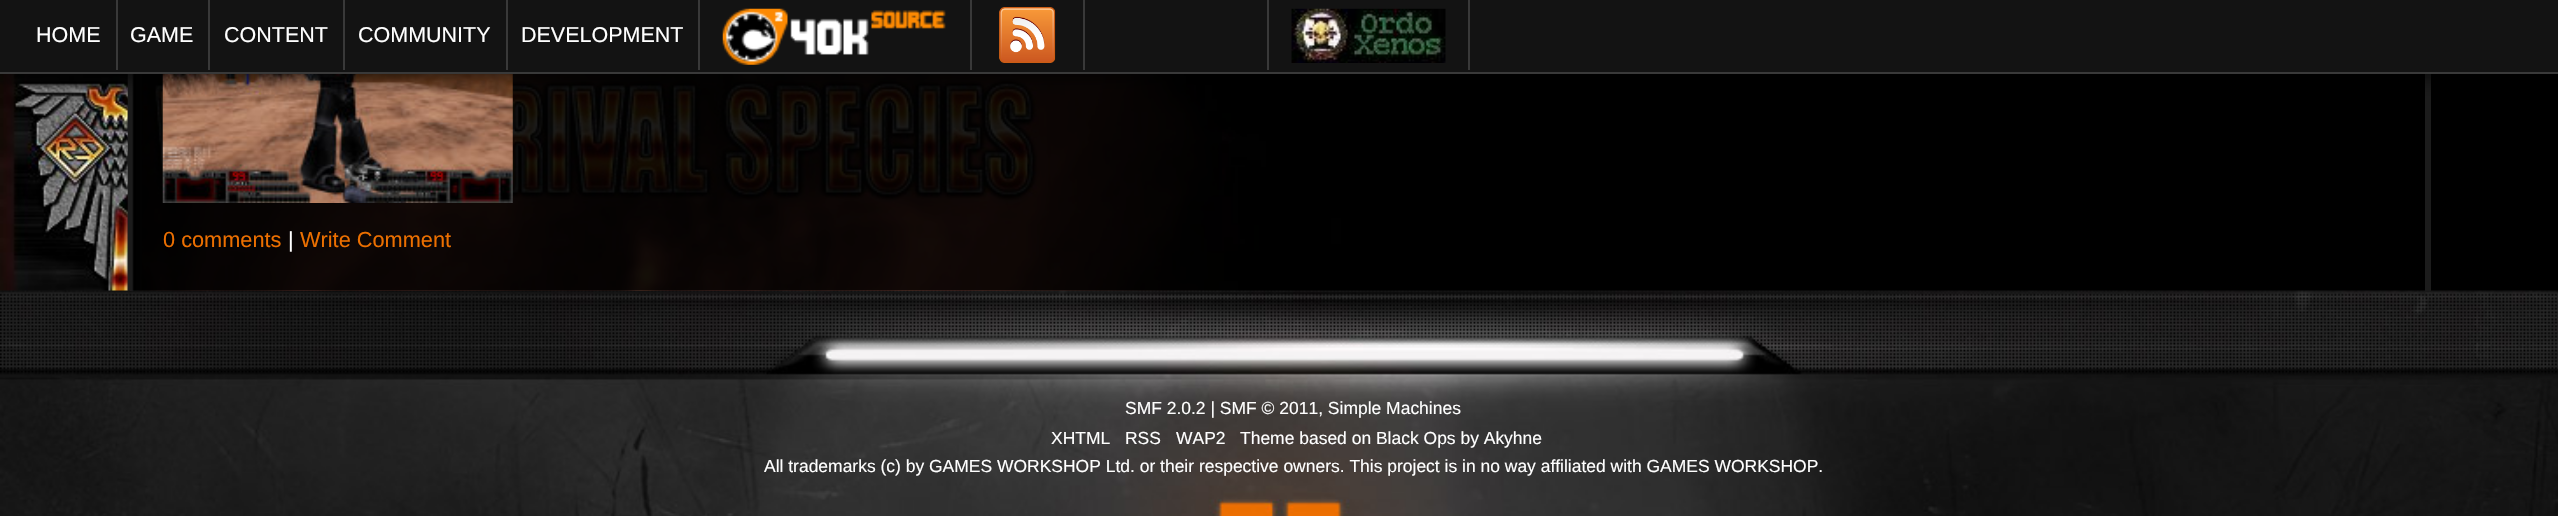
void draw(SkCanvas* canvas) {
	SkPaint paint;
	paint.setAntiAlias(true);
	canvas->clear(0xff000000);
	canvas->drawImageRect(SkImages::DeferredFromEncodedData(SkData::MakeFromFileName("img1.png")), SkRect::MakeXYWH(0, 74, 1341, 217), SkSamplingOptions());
	canvas->drawImageRect(SkImages::DeferredFromEncodedData(SkData::MakeFromFileName("img5.png")), SkRect::MakeXYWH(127, 74, 1095, 217), SkSamplingOptions());
	paint.setColor(0xff1c1c1c);
	canvas->drawRect(SkRect::MakeXYWH(2425, 74, 6, 217), paint);
	canvas->drawImageRect(SkImages::DeferredFromEncodedData(SkData::MakeFromFileName("img6.png")), SkRect::MakeXYWH(162, 74, 351, 129), SkSamplingOptions());
	paint.setColor(0xff000000);
	paint.setMaskFilter(SkMaskFilter::MakeBlur(kNormal_SkBlurStyle, 13));
	canvas->drawRect(SkRect::MakeXYWH(9, 0, 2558, 74), paint);
	paint.setMaskFilter(nullptr);
	paint.setColor(0xff131313);
	canvas->drawRect(SkRect::MakeXYWH(0, 0, 2558, 72), paint);
	paint.setColor(0xff393939);
	canvas->drawRect(SkRect::MakeXYWH(0, 72, 2558, 2), paint);
	canvas->drawRect(SkRect::MakeXYWH(116, 0, 2, 70), paint);
	SkFont f1(fontMgr->matchFamilyStyle("Liberation Sans", SkFontStyle::Normal()), 21.5);
	f1.setSubpixel(true);
	paint.setColor(0xffffffff);
	canvas->drawString("HOME", 36, 42, f1, paint);
	paint.setColor(0xff393939);
	canvas->drawRect(SkRect::MakeXYWH(208, 0, 2, 70), paint);
	paint.setColor(0xffffffff);
	canvas->drawString("GAME", 130, 42, f1, paint);
	paint.setColor(0xff393939);
	canvas->drawRect(SkRect::MakeXYWH(343, 0, 2, 70), paint);
	paint.setColor(0xffffffff);
	canvas->drawString("CONTENT", 224, 42, f1, paint);
	paint.setColor(0xff393939);
	canvas->drawRect(SkRect::MakeXYWH(506, 0, 2, 70), paint);
	paint.setColor(0xffffffff);
	canvas->drawString("COMMUNITY", 358, 42, f1, paint);
	paint.setColor(0xff393939);
	canvas->drawRect(SkRect::MakeXYWH(698, 0, 2, 70), paint);
	paint.setColor(0xffffffff);
	canvas->drawString("DEVELOPMENT", 521, 42, f1, paint);
	paint.setColor(0xff393939);
	canvas->drawRect(SkRect::MakeXYWH(970, 0, 2, 70), paint);
	canvas->drawImageRect(SkImages::DeferredFromEncodedData(SkData::MakeFromFileName("img2.png")), SkRect::MakeXYWH(722, 8, 224, 57), SkSamplingOptions());
	canvas->drawRect(SkRect::MakeXYWH(1083, 0, 2, 70), paint);
	canvas->drawImageRect(SkImages::DeferredFromEncodedData(SkData::MakeFromFileName("img3.png")), SkRect::MakeXYWH(999, 7, 57, 56), SkSamplingOptions());
	canvas->drawRect(SkRect::MakeXYWH(1267, 0, 2, 70), paint);
	canvas->drawRect(SkRect::MakeXYWH(1468, 0, 2, 70), paint);
	canvas->drawImageRect(SkImages::DeferredFromEncodedData(SkData::MakeFromFileName("img4.png")), SkRect::MakeXYWH(1291, 8, 155, 55), SkSamplingOptions());
	SkFont f2(fontMgr->matchFamilyStyle("Liberation Sans", SkFontStyle::Normal()), 21.75);
	f2.setSubpixel(true);
	paint.setColor(0xffec6f00);
	canvas->drawString("0 comments", 163, 247, f2, paint);
	paint.setColor(0xffffffff);
	canvas->drawString("|", 288, 247, f2, paint);
	paint.setColor(0xffec6f00);
	canvas->drawString("Write Comment", 300, 247, f2, paint);
	canvas->drawImageRect(SkImages::DeferredFromEncodedData(SkData::MakeFromFileName("img7.png")), SkRect::MakeXYWH(0, 290, 2558, 226), SkSamplingOptions());
	SkFont f3(fontMgr->matchFamilyStyle("Liberation Sans", SkFontStyle::Normal()), 17.47);
	f3.setSubpixel(true);
	paint.setColor(0xffffffff);
	canvas->drawString("SMF 2.0.2 | SMF © 2011, Simple Machines", 1125, 414, f3, paint);
	canvas->drawString("XHTML", 1051, 444, f3, paint);
	canvas->drawString("RSS", 1125, 444, f3, paint);
	canvas->drawString("WAP2", 1176, 444, f3, paint);
	canvas->drawString("Theme based on Black Ops by Akyhne", 1240, 444, f3, paint);
	canvas->drawString("All trademarks (c) by GAMES WORKSHOP Ltd. or their respective owners. This project is in no way affiliated with GAMES WORKSHOP.", 764, 472, f3, paint);
}
